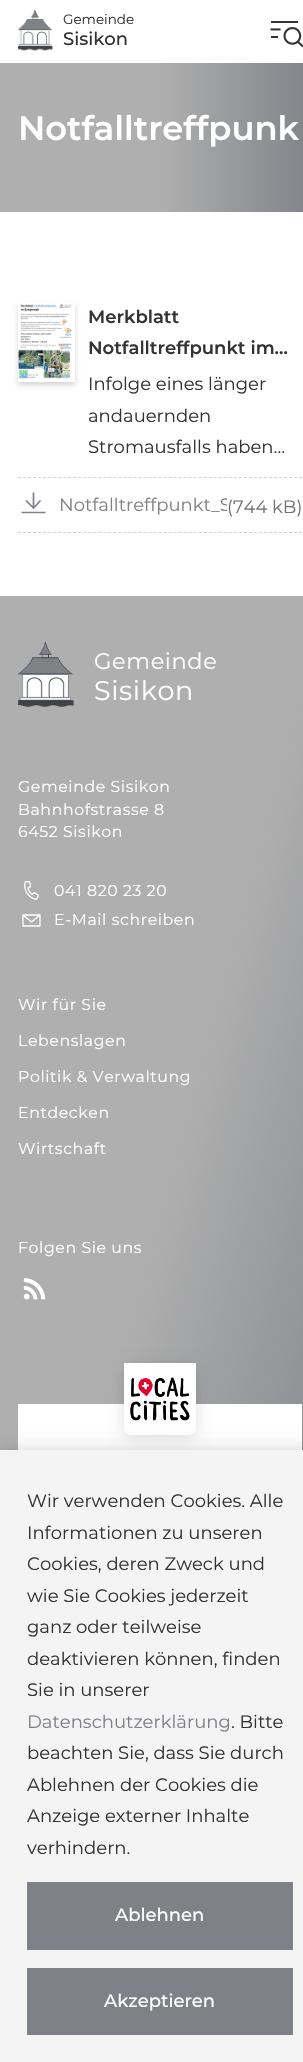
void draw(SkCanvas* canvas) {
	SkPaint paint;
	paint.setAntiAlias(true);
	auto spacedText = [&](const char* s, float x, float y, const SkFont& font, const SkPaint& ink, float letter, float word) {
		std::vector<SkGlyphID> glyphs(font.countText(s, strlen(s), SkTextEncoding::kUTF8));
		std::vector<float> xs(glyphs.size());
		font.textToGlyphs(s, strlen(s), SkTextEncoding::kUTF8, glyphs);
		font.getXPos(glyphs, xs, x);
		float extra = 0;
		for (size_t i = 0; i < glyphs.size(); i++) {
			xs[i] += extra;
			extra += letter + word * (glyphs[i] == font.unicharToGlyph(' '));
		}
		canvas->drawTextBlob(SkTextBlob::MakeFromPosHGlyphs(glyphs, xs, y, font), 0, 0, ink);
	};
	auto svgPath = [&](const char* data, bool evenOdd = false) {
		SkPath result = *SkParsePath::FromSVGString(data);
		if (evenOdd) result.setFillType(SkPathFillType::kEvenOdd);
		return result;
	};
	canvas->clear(0xffffffff);
	canvas->drawImageRect(SkImages::DeferredFromEncodedData(SkData::MakeFromFileName("img1.png")), SkRect::MakeXYWH(18, 9, 35, 42), SkSamplingOptions());
	SkFont f1(fontMgr->matchFamilyStyle("Montserrat", SkFontStyle::Normal()), 13.5);
	f1.setSubpixel(true);
	paint.setColor(0xff333333);
	canvas->drawString("Gemeinde", 63, 24, f1, paint);
	SkFont f2(fontMgr->matchFamilyStyle("Montserrat", SkFontStyle(500, SkFontStyle::kNormal_Width, SkFontStyle::kUpright_Slant)), 18);
	f2.setSubpixel(true);
	canvas->drawString("Sisikon", 63, 45, f2, paint);
	canvas->drawImageRect(SkImages::DeferredFromEncodedData(SkData::MakeFromFileName("img2.png")), SkRect::MakeXYWH(270, 21, 33, 27), SkSamplingOptions());
	{
		const SkColor colors[] = {0xffafafaf, 0xffafafaf, 0xff7e8187};
		const float stops[] = {0, 0.5, 1};
		const SkPoint ends[] = {{0, 138}, {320, 138}};
		paint.setShader(SkGradientShader::MakeLinear(ends, colors, stops, 3, SkTileMode::kClamp));
		paint.setAlpha(255);
	}
	canvas->drawRect(SkRect::MakeXYWH(0, 63, 303, 149), paint);
	SkFont f3(fontMgr->matchFamilyStyle("Montserrat", SkFontStyle(600, SkFontStyle::kNormal_Width, SkFontStyle::kUpright_Slant)), 33.75);
	f3.setSubpixel(true);
	paint.setShader(nullptr);
	paint.setColor(0xffffffff);
	canvas->drawString("Notfalltreffpunk", 18, 140, f3, paint);
	canvas->save();
	canvas->clipPath(svgPath("M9 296H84V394H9ZM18 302H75V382H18Z", true), true);
	paint.setColor(0x29000000);
	paint.setMaskFilter(SkMaskFilter::MakeBlur(kNormal_SkBlurStyle, 2.5));
	canvas->drawRect(SkRect::MakeXYWH(18, 305, 57, 80), paint);
	paint.setMaskFilter(nullptr);
	canvas->restore();
	canvas->drawImageRect(SkImages::DeferredFromEncodedData(SkData::MakeFromFileName("img3.png")), SkRect::MakeXYWH(18, 303, 55, 76), SkSamplingOptions());
	SkFont f4(fontMgr->matchFamilyStyle("Montserrat", SkFontStyle(600, SkFontStyle::kNormal_Width, SkFontStyle::kUpright_Slant)), 18);
	f4.setSubpixel(true);
	paint.setColor(0xff333333);
	canvas->drawString("Merkblatt", 88, 323, f4, paint);
	canvas->drawString("Notfalltreffpunkt im…", 88, 354, f4, paint);
	SkFont f5(fontMgr->matchFamilyStyle("Montserrat", SkFontStyle::Normal()), 18);
	f5.setSubpixel(true);
	canvas->drawString("Infolge eines länger", 88, 390, f5, paint);
	canvas->drawString("andauernden", 88, 422, f5, paint);
	canvas->drawString("Stromausfalls haben…", 88, 453, f5, paint);
	paint.setStroke(true);
	paint.setStrokeWidth(1);
	paint.setColor(0xffd4d4d4);
	paint.setPathEffect(SkDashPathEffect::Make({{3, 2.02f}}, 0));
	canvas->drawPath(svgPath("M18 477.5H302"), paint);
	paint.setPathEffect(nullptr);
	paint.setPathEffect(SkDashPathEffect::Make({{3, 2.02f}}, 0));
	canvas->drawPath(svgPath("M18 532.5H302"), paint);
	paint.setPathEffect(nullptr);
	paint.setStrokeWidth(1.7);
	paint.setColor(0xff7e8187);
	canvas->drawPath(svgPath("M21.5 512.5H45.5M33.5 492.5V508M26 500.5L33.5 508L40.5 500.5"), paint);
	canvas->save();
	canvas->clipRect(SkRect::MakeXYWH(18, 478, 209, 54));
	paint.setStroke(false);
	canvas->drawString("Notfalltreffpunkt_S", 59, 511, f5, paint);
	canvas->restore();
	paint.setColor(0xff737373);
	canvas->drawString("(744 kB)", 227, 513, f5, paint);
	{
		const SkColor colors[] = {0xffafafaf, 0xffafafaf, 0xff7e8187};
		const float stops[] = {0, 0.5, 1};
		const SkPoint ends[] = {{-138, 1110}, {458, 1270}};
		paint.setShader(SkGradientShader::MakeLinear(ends, colors, stops, 3, SkTileMode::kClamp));
		paint.setAlpha(255);
	}
	canvas->drawRect(SkRect::MakeXYWH(0, 596, 303, 854), paint);
	canvas->drawImageRect(SkImages::DeferredFromEncodedData(SkData::MakeFromFileName("img4.png")), SkRect::MakeXYWH(18, 641, 56, 66), SkSamplingOptions());
	SkFont f6(fontMgr->matchFamilyStyle("Montserrat", SkFontStyle::Normal()), 22.5);
	f6.setSubpixel(true);
	paint.setShader(nullptr);
	paint.setColor(0xffffffff);
	spacedText("Gemeinde", 94, 669, f6, paint, 0.6, 0);
	SkFont f7(fontMgr->matchFamilyStyle("Montserrat", SkFontStyle::Normal()), 27);
	f7.setSubpixel(true);
	spacedText("Sisikon", 94, 700, f7, paint, 0.6, 0);
	SkFont f8(fontMgr->matchFamilyStyle("Montserrat", SkFontStyle::Normal()), 15.75);
	f8.setSubpixel(true);
	spacedText("Gemeinde Sisikon", 18, 792, f8, paint, 0.6, 0);
	spacedText("Bahnhofstrasse 8", 18, 815, f8, paint, 0.6, 0);
	spacedText("6452 Sisikon", 18, 837, f8, paint, 0.6, 0);
	canvas->drawImageRect(SkImages::DeferredFromEncodedData(SkData::MakeFromFileName("img5.png")), SkRect::MakeXYWH(24, 881, 15, 19), SkSamplingOptions());
	spacedText("041 820 23 20", 54, 896, f8, paint, 0.6, 0);
	paint.setStroke(true);
	paint.setStrokeWidth(1.3);
	paint.setStrokeCap(SkPaint::kRound_Cap);
	paint.setStrokeJoin(SkPaint::kRound_Join);
	canvas->drawPath(svgPath("M23 915H40V926H23ZM40 915L31.5 922L23 915"), paint);
	paint.setStroke(false);
	spacedText("E-Mail schreiben", 54, 925, f8, paint, 0.6, 0);
	spacedText("Wir für Sie", 18, 1010, f8, paint, 0.6, 0);
	spacedText("Lebenslagen", 18, 1046, f8, paint, 0.6, 0);
	spacedText("Politik & Verwaltung", 18, 1082, f8, paint, 0.6, 0);
	spacedText("Entdecken", 18, 1118, f8, paint, 0.6, 0);
	spacedText("Wirtschaft", 18, 1154, f8, paint, 0.6, 0);
	spacedText("Folgen Sie uns", 18, 1253, f8, paint, 0.6, 0);
	canvas->drawImageRect(SkImages::DeferredFromEncodedData(SkData::MakeFromFileName("img6.png")), SkRect::MakeXYWH(23, 1278, 23, 22), SkSamplingOptions());
	canvas->drawRect(SkRect::MakeXYWH(18, 1404, 284, 46), paint);
	canvas->save();
	canvas->clipPath(svgPath("M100 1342H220V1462H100ZM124 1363H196V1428C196 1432 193 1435 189 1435H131C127 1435 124 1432 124 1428Z", true), true);
	paint.setColor(0x1f000000);
	paint.setMaskFilter(SkMaskFilter::MakeBlur(kNormal_SkBlurStyle, 7.5));
	canvas->drawRoundRect(SkRect::MakeXYWH(124, 1366, 72, 72), 7, 7, paint);
	paint.setMaskFilter(nullptr);
	canvas->restore();
	canvas->drawImageRect(SkImages::DeferredFromEncodedData(SkData::MakeFromFileName("img7.png")), SkRect::MakeXYWH(124, 1363, 72, 58), SkSamplingOptions());
	paint.setColor(0x36000000);
	paint.setMaskFilter(SkMaskFilter::MakeBlur(kNormal_SkBlurStyle, 10));
	canvas->drawRect(SkRect::MakeXYWH(0, 1453, 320, 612), paint);
	paint.setMaskFilter(nullptr);
	paint.setColor(0xfff4f4f4);
	canvas->drawRect(SkRect::MakeXYWH(0, 1450, 303, 612), paint);
	paint.setColor(0xff333333);
	canvas->drawString("Wir verwenden Cookies. Alle", 27, 1507, f5, paint);
	canvas->drawString("Informationen zu unseren", 27, 1539, f5, paint);
	canvas->drawString("Cookies, deren Zweck und", 27, 1570, f5, paint);
	canvas->drawString("wie Sie Cookies jederzeit", 27, 1602, f5, paint);
	canvas->drawString("ganz oder teilweise", 27, 1633, f5, paint);
	canvas->drawString("deaktivieren können, finden", 27, 1665, f5, paint);
	canvas->drawString("Sie in unserer", 27, 1696, f5, paint);
	paint.setColor(0xff7e8187);
	canvas->drawString("Datenschutzerklärung", 27, 1728, f5, paint);
	paint.setColor(0xff333333);
	canvas->drawString(". Bitte", 231, 1728, f5, paint);
	canvas->drawString("beachten Sie, dass Sie durch", 27, 1759, f5, paint);
	canvas->drawString("Ablehnen der Cookies die", 27, 1791, f5, paint);
	canvas->drawString("Anzeige externer Inhalte", 27, 1822, f5, paint);
	canvas->drawString("verhindern.", 27, 1854, f5, paint);
	paint.setColor(0xff7e8187);
	canvas->drawRect(SkRect::MakeXYWH(27, 1882, 266, 68), paint);
	paint.setColor(0xffffffff);
	canvas->drawString("Ablehnen", 115, 1921, f2, paint);
	paint.setColor(0xff7e8187);
	canvas->drawRect(SkRect::MakeXYWH(27, 1968, 266, 67), paint);
	paint.setColor(0xffffffff);
	canvas->drawString("Akzeptieren", 104, 2007, f2, paint);
}
